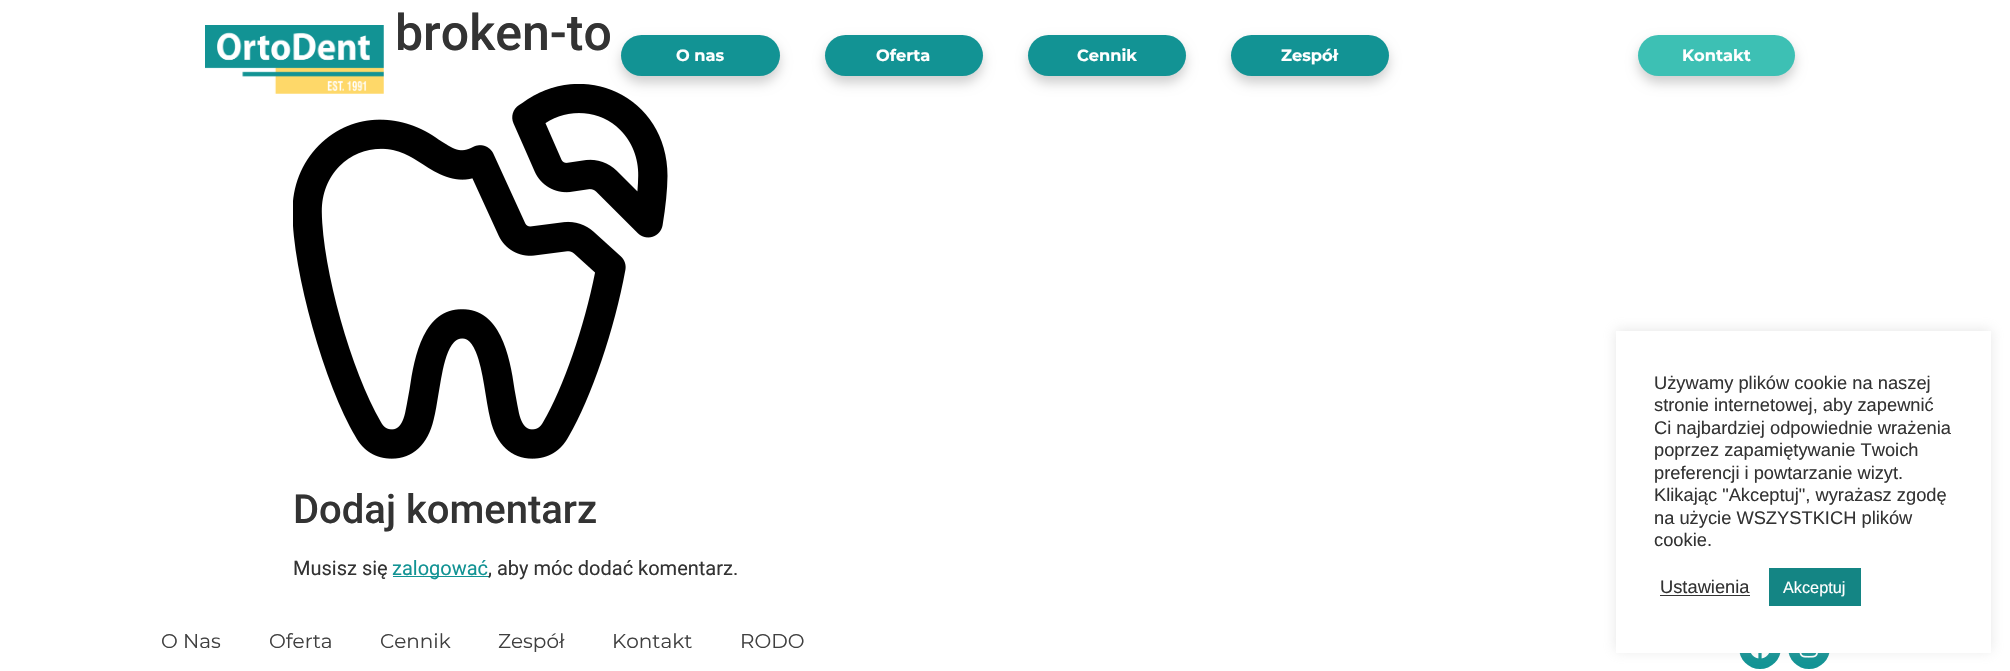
void draw(SkCanvas* canvas) {
	SkPaint paint;
	paint.setAntiAlias(true);
	canvas->clear(0xffffffff);
	SkFont f1(fontMgr->matchFamilyStyle("Roboto", SkFontStyle(500, SkFontStyle::kNormal_Width, SkFontStyle::kUpright_Slant)), 50);
	f1.setSubpixel(true);
	paint.setColor(0xff333333);
	canvas->drawString("broken-to", 395, 50, f1, paint);
	canvas->drawImageRect(SkImages::DeferredFromEncodedData(SkData::MakeFromFileName("img1.png")), SkRect::MakeXYWH(293, 84, 375, 375), SkSamplingOptions());
	SkFont f2(fontMgr->matchFamilyStyle("Roboto", SkFontStyle(500, SkFontStyle::kNormal_Width, SkFontStyle::kUpright_Slant)), 40);
	f2.setSubpixel(true);
	canvas->drawString("Dodaj komentarz", 293, 523, f2, paint);
	SkFont f3(fontMgr->matchFamilyStyle("Roboto", SkFontStyle::Normal()), 20);
	f3.setSubpixel(true);
	canvas->drawString("Musisz się", 293, 575, f3, paint);
	paint.setColor(0xff129394);
	canvas->drawRect(SkRect::MakeXYWH(393, 576, 96, 1), paint);
	canvas->drawString("zalogować", 392, 575, f3, paint);
	paint.setColor(0xff333333);
	canvas->drawString(", aby móc dodać komentarz.", 488, 575, f3, paint);
	canvas->drawImageRect(SkImages::DeferredFromEncodedData(SkData::MakeFromFileName("img2.png")), SkRect::MakeXYWH(205, 25, 179, 69), SkSamplingOptions());
	paint.setColor(0x30000000);
	paint.setMaskFilter(SkMaskFilter::MakeBlur(kNormal_SkBlurStyle, 6));
	canvas->drawRoundRect(SkRect::MakeXYWH(621, 41, 159, 42), 21, 21, paint);
	paint.setMaskFilter(nullptr);
	paint.setColor(0xff129394);
	canvas->drawRoundRect(SkRect::MakeXYWH(621, 35, 159, 41), 20.5, 20.5, paint);
	SkFont f4(fontMgr->matchFamilyStyle("Montserrat", SkFontStyle::Bold()), 16.25);
	f4.setSubpixel(true);
	paint.setColor(0xffffffff);
	canvas->drawString("O nas", 676, 61, f4, paint);
	paint.setColor(0x30000000);
	paint.setMaskFilter(SkMaskFilter::MakeBlur(kNormal_SkBlurStyle, 6));
	canvas->drawRoundRect(SkRect::MakeXYWH(825, 41, 158, 42), 21, 21, paint);
	paint.setMaskFilter(nullptr);
	paint.setColor(0xff129394);
	canvas->drawRoundRect(SkRect::MakeXYWH(825, 35, 158, 41), 20.5, 20.5, paint);
	paint.setColor(0xffffffff);
	canvas->drawString("Oferta", 876, 61, f4, paint);
	paint.setColor(0x30000000);
	paint.setMaskFilter(SkMaskFilter::MakeBlur(kNormal_SkBlurStyle, 6));
	canvas->drawRoundRect(SkRect::MakeXYWH(1028, 41, 158, 42), 21, 21, paint);
	paint.setMaskFilter(nullptr);
	paint.setColor(0xff129394);
	canvas->drawRoundRect(SkRect::MakeXYWH(1028, 35, 158, 41), 20.5, 20.5, paint);
	paint.setColor(0xffffffff);
	canvas->drawString("Cennik", 1077, 61, f4, paint);
	paint.setColor(0x30000000);
	paint.setMaskFilter(SkMaskFilter::MakeBlur(kNormal_SkBlurStyle, 6));
	canvas->drawRoundRect(SkRect::MakeXYWH(1231, 41, 158, 42), 21, 21, paint);
	paint.setMaskFilter(nullptr);
	paint.setColor(0xff129394);
	canvas->drawRoundRect(SkRect::MakeXYWH(1231, 35, 158, 41), 20.5, 20.5, paint);
	paint.setColor(0xffffffff);
	canvas->drawString("Zespół", 1281, 61, f4, paint);
	paint.setColor(0x30000000);
	paint.setMaskFilter(SkMaskFilter::MakeBlur(kNormal_SkBlurStyle, 6));
	canvas->drawRoundRect(SkRect::MakeXYWH(1638, 41, 157, 42), 21, 21, paint);
	paint.setMaskFilter(nullptr);
	paint.setColor(0xff3dc0b4);
	canvas->drawRoundRect(SkRect::MakeXYWH(1638, 35, 157, 41), 20.5, 20.5, paint);
	paint.setColor(0xffffffff);
	canvas->drawString("Kontakt", 1682, 61, f4, paint);
	paint.setColor(0xff129394);
	canvas->drawRoundRect(SkRect::MakeXYWH(1739, 626, 42, 43), 21, 21, paint);
	canvas->drawImageRect(SkImages::DeferredFromEncodedData(SkData::MakeFromFileName("img3.png")), SkRect::MakeXYWH(1751, 653, 18, 6), SkSamplingOptions());
	canvas->drawRoundRect(SkRect::MakeXYWH(1788, 626, 42, 43), 21, 21, paint);
	canvas->drawImageRect(SkImages::DeferredFromEncodedData(SkData::MakeFromFileName("img4.png")), SkRect::MakeXYWH(1799, 653, 19, 5), SkSamplingOptions());
	paint.setColor(0x4dacabab);
	paint.setMaskFilter(SkMaskFilter::MakeBlur(kNormal_SkBlurStyle, 6));
	canvas->drawRect(SkRect::MakeXYWH(1616, 330, 375, 321), paint);
	paint.setMaskFilter(nullptr);
	paint.setColor(0xffffffff);
	canvas->drawRect(SkRect::MakeXYWH(1616, 331, 375, 322), paint);
	SkFont f5(fontMgr->matchFamilyStyle("Liberation Sans", SkFontStyle::Normal()), 18.3);
	f5.setSubpixel(true);
	paint.setColor(0xff333333);
	canvas->drawString("Używamy plików cookie na naszej", 1654, 389, f5, paint);
	canvas->drawString("stronie internetowej, aby zapewnić", 1654, 411, f5, paint);
	canvas->drawString("Ci najbardziej odpowiednie wrażenia", 1654, 434, f5, paint);
	canvas->drawString("poprzez zapamiętywanie Twoich", 1654, 456, f5, paint);
	canvas->drawString("preferencji i powtarzanie wizyt.", 1654, 479, f5, paint);
	canvas->drawString("Klikając \"Akceptuj\", wyrażasz zgodę", 1654, 501, f5, paint);
	canvas->drawString("na użycie WSZYSTKICH plików", 1654, 524, f5, paint);
	canvas->drawString("cookie.", 1654, 546, f5, paint);
	canvas->drawString("Ustawienia", 1660, 593, f5, paint);
	canvas->drawRect(SkRect::MakeXYWH(1660, 595, 90, 1), paint);
	paint.setColor(0xff148584);
	canvas->drawRect(SkRect::MakeXYWH(1769, 568, 92, 38), paint);
	SkFont f6(fontMgr->matchFamilyStyle("Liberation Sans", SkFontStyle::Normal()), 16.25);
	f6.setSubpixel(true);
	paint.setColor(0xffffffff);
	canvas->drawString("Akceptuj", 1783, 593, f6, paint);
	SkFont f7(fontMgr->matchFamilyStyle("Montserrat", SkFontStyle::Normal()), 20);
	f7.setSubpixel(true);
	paint.setColor(0xff404040);
	canvas->drawString("O Nas", 161, 648, f7, paint);
	canvas->drawString("Oferta", 269, 648, f7, paint);
	canvas->drawString("Cennik", 380, 648, f7, paint);
	canvas->drawString("Zespół", 498, 648, f7, paint);
	canvas->drawString("Kontakt", 612, 648, f7, paint);
	canvas->drawString("RODO", 740, 648, f7, paint);
}
